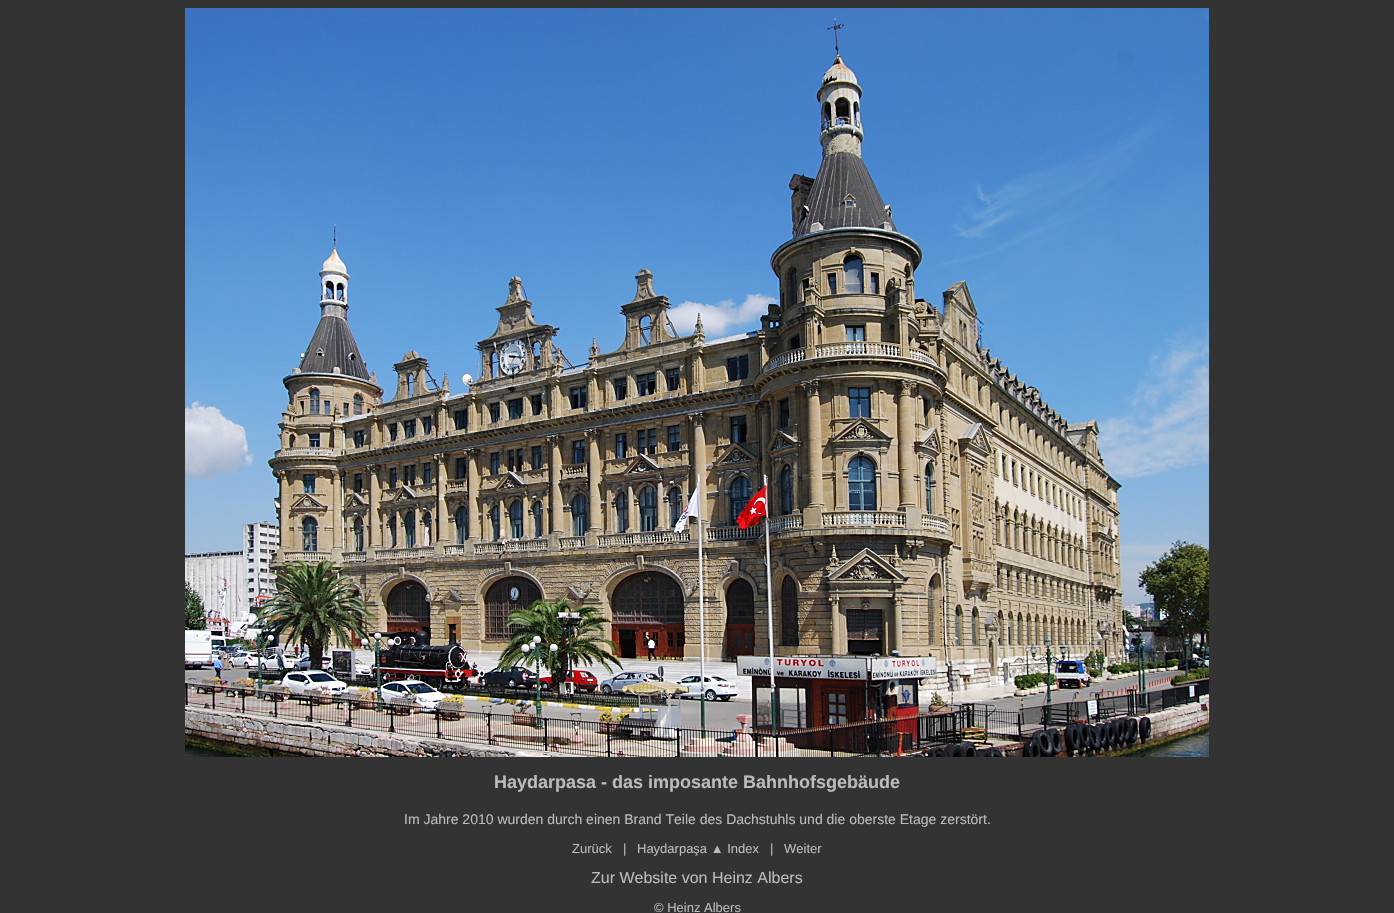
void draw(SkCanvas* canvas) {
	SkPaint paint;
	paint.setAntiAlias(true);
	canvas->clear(0xff333333);
	canvas->drawImageRect(SkImages::DeferredFromEncodedData(SkData::MakeFromFileName("img1.png")), SkRect::MakeXYWH(185, 8, 1024, 749), SkSamplingOptions());
	SkFont f1(fontMgr->matchFamilyStyle("Liberation Sans", SkFontStyle::Bold()), 18);
	f1.setSubpixel(true);
	paint.setColor(0xffbbbbbb);
	canvas->drawString("Haydarpasa - das imposante Bahnhofsgebäude", 494, 788, f1, paint);
	SkFont f2(fontMgr->matchFamilyStyle("Liberation Sans", SkFontStyle::Normal()), 14);
	f2.setSubpixel(true);
	canvas->drawString("Im Jahre 2010 wurden durch einen Brand Teile des Dachstuhls und die oberste Etage zerstört.", 404, 824, f2, paint);
	SkFont f3(fontMgr->matchFamilyStyle("Liberation Sans", SkFontStyle::Normal()), 13);
	f3.setSubpixel(true);
	canvas->drawString("Zurück", 572, 853, f3, paint);
	canvas->drawString("|", 623, 853, f3, paint);
	canvas->drawString("Haydarpaşa ▲ Index", 637, 853, f3, paint);
	canvas->drawString("|", 770, 853, f3, paint);
	canvas->drawString("Weiter", 784, 853, f3, paint);
	SkFont f4(fontMgr->matchFamilyStyle("Liberation Sans", SkFontStyle::Normal()), 16);
	f4.setSubpixel(true);
	canvas->drawString("Zur Website von Heinz Albers", 591, 883, f4, paint);
	canvas->drawString("© Heinz Albers", 654, 912, f3, paint);
}
